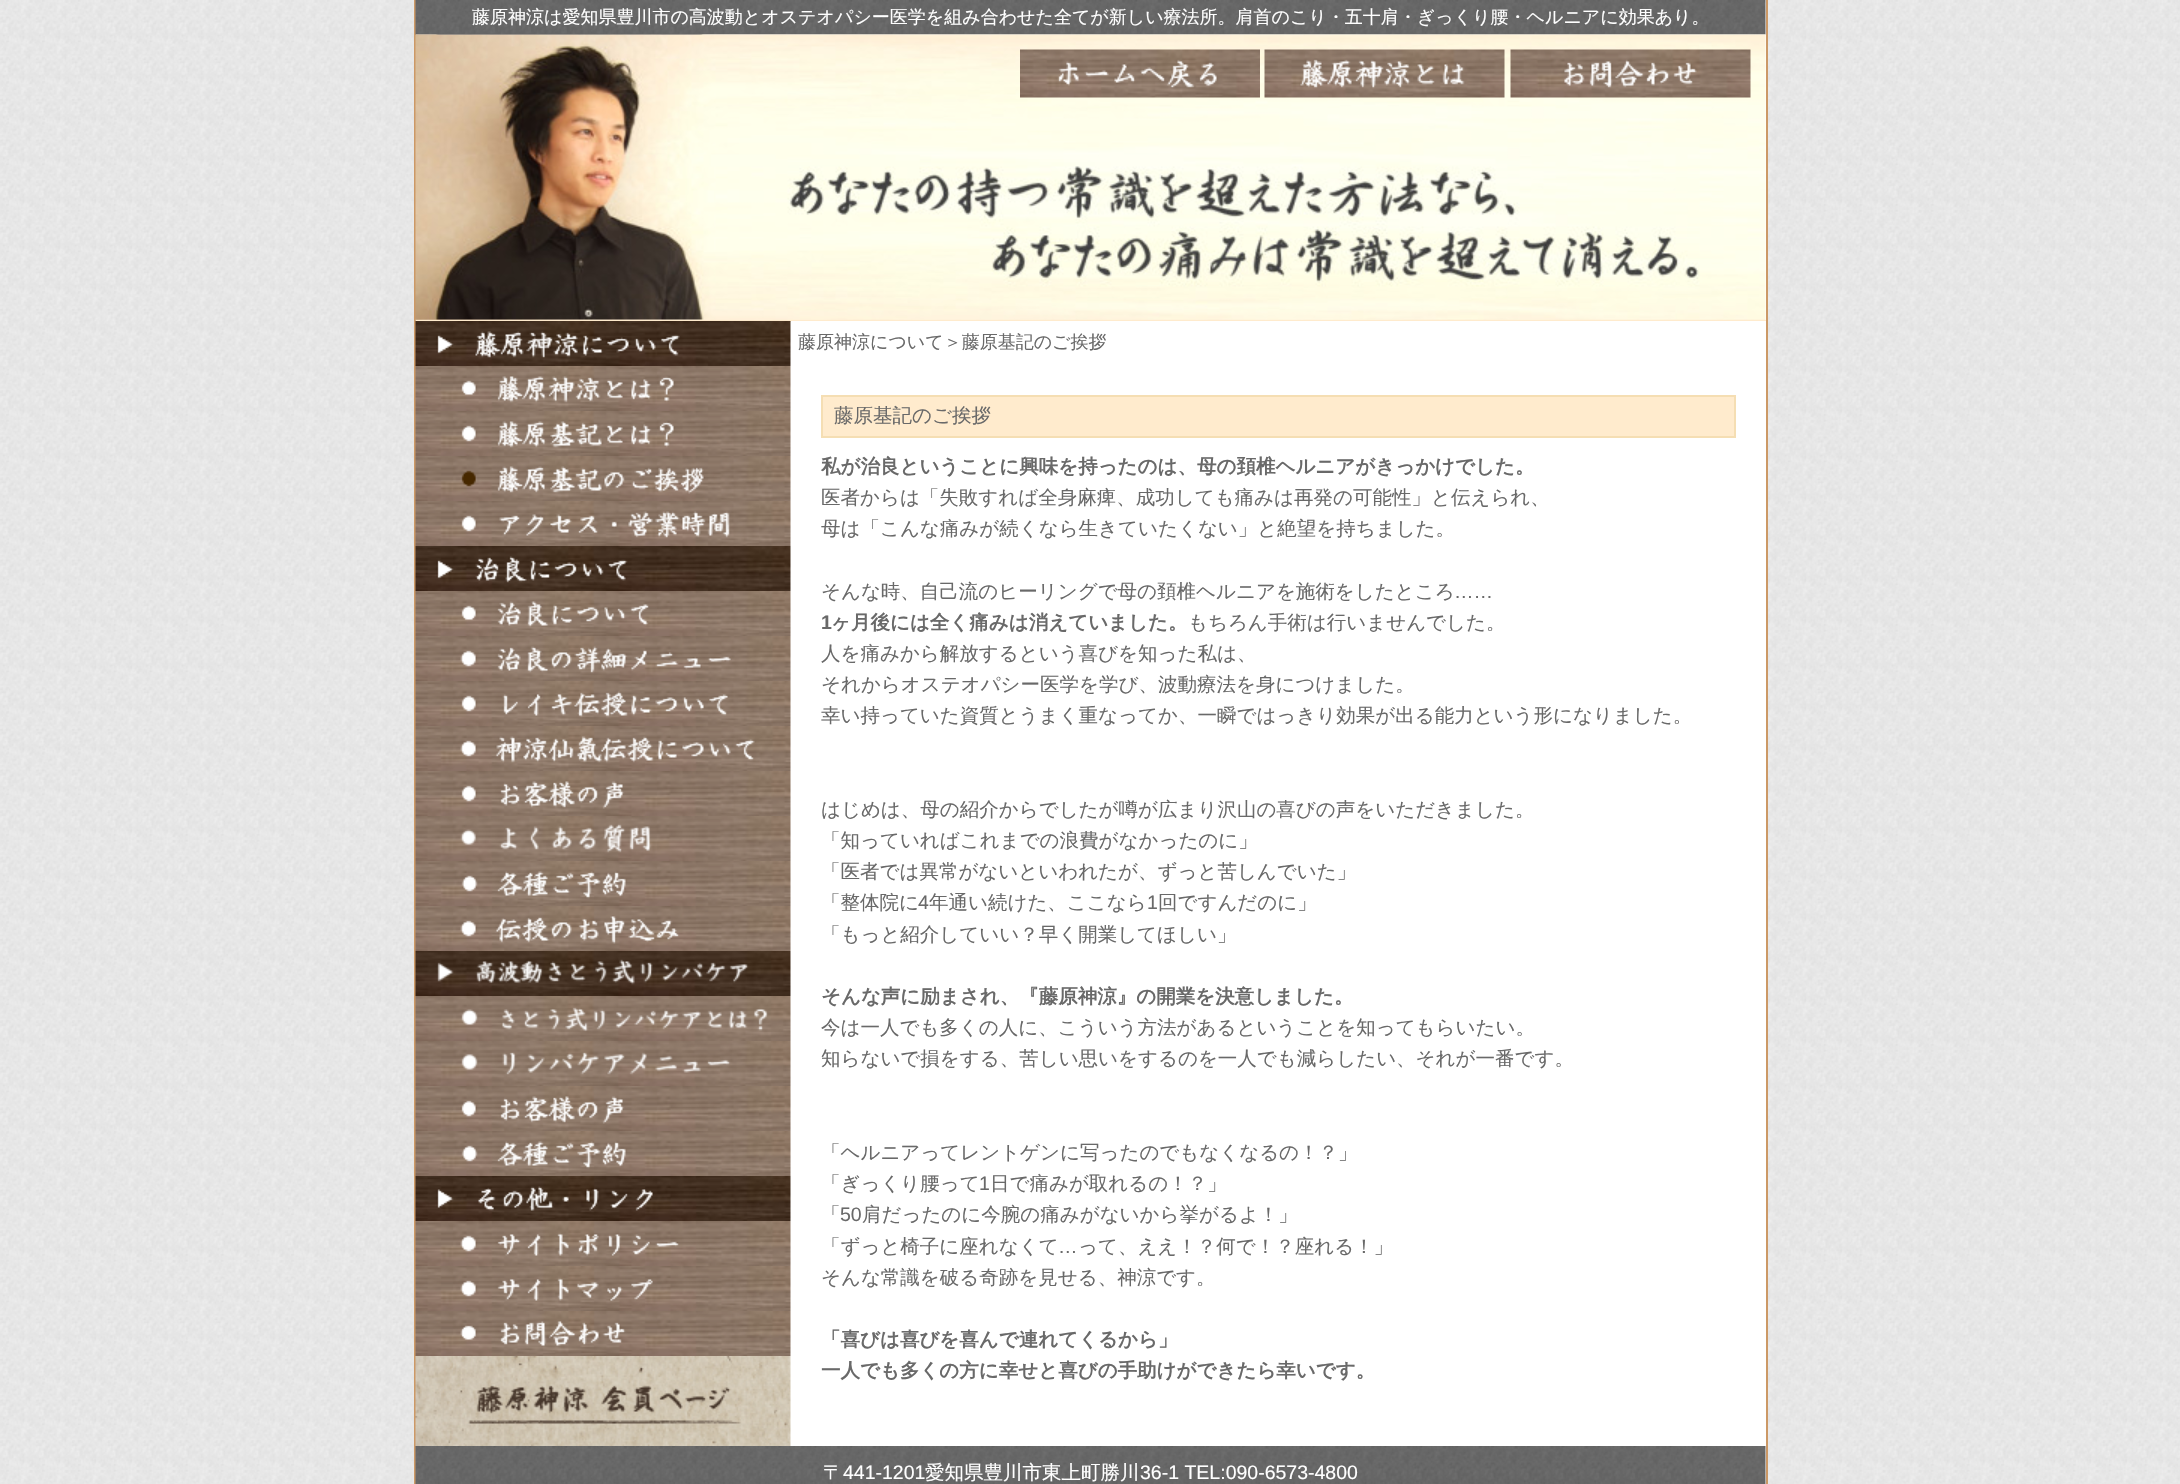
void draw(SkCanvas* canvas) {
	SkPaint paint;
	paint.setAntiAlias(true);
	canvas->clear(0xffffffff);
	canvas->drawImageRect(SkImages::DeferredFromEncodedData(SkData::MakeFromFileName("img1.png")), SkRect::MakeXYWH(0, 0, 2180, 1484), SkSamplingOptions());
	paint.setColor(0xffffffff);
	canvas->drawRect(SkRect::MakeXYWH(416, 0, 1350, 1484), paint);
	paint.setColor(0xffcc9966);
	canvas->drawRect(SkRect::MakeXYWH(1766, 0, 2, 1484), paint);
	canvas->drawRect(SkRect::MakeXYWH(414, 0, 2, 1484), paint);
	canvas->drawImageRect(SkImages::DeferredFromEncodedData(SkData::MakeFromFileName("img2.png")), SkRect::MakeXYWH(415, 0, 1351, 35), SkSamplingOptions());
	SkFont f1(fontMgr->matchFamilyStyle("WenQuanYi Zen Hei", SkFontStyle(500, SkFontStyle::kNormal_Width, SkFontStyle::kUpright_Slant)), 18);
	f1.setSubpixel(true);
	paint.setColor(0xffffffff);
	canvas->drawString("藤原神涼は愛知県豊川市の高波動とオステオパシー医学を組み合わせた全てが新しい療法所。肩首のこり・五十肩・ぎっくり腰・ヘルニアに効果あり。", 472, 23, f1, paint);
	canvas->drawImageRect(SkImages::DeferredFromEncodedData(SkData::MakeFromFileName("img3.png")), SkRect::MakeXYWH(415, 34, 1351, 287), SkSamplingOptions());
	paint.setColor(0xffffebcd);
	canvas->drawRect(SkRect::MakeXYWH(416, 320, 1350, 2), paint);
	canvas->drawImageRect(SkImages::DeferredFromEncodedData(SkData::MakeFromFileName("img4.png")), SkRect::MakeXYWH(1020, 49, 240, 49), SkSamplingOptions());
	canvas->drawImageRect(SkImages::DeferredFromEncodedData(SkData::MakeFromFileName("img5.png")), SkRect::MakeXYWH(1264, 49, 241, 49), SkSamplingOptions());
	canvas->drawImageRect(SkImages::DeferredFromEncodedData(SkData::MakeFromFileName("img6.png")), SkRect::MakeXYWH(1510, 49, 241, 49), SkSamplingOptions());
	canvas->drawImageRect(SkImages::DeferredFromEncodedData(SkData::MakeFromFileName("img7.png")), SkRect::MakeXYWH(415, 321, 376, 45), SkSamplingOptions());
	canvas->drawImageRect(SkImages::DeferredFromEncodedData(SkData::MakeFromFileName("img8.png")), SkRect::MakeXYWH(415, 366, 376, 45), SkSamplingOptions());
	canvas->drawImageRect(SkImages::DeferredFromEncodedData(SkData::MakeFromFileName("img9.png")), SkRect::MakeXYWH(415, 411, 376, 45), SkSamplingOptions());
	canvas->drawImageRect(SkImages::DeferredFromEncodedData(SkData::MakeFromFileName("img10.png")), SkRect::MakeXYWH(415, 456, 376, 45), SkSamplingOptions());
	canvas->drawImageRect(SkImages::DeferredFromEncodedData(SkData::MakeFromFileName("img11.png")), SkRect::MakeXYWH(415, 501, 376, 45), SkSamplingOptions());
	canvas->drawImageRect(SkImages::DeferredFromEncodedData(SkData::MakeFromFileName("img12.png")), SkRect::MakeXYWH(415, 546, 376, 45), SkSamplingOptions());
	canvas->drawImageRect(SkImages::DeferredFromEncodedData(SkData::MakeFromFileName("img13.png")), SkRect::MakeXYWH(415, 591, 376, 45), SkSamplingOptions());
	canvas->drawImageRect(SkImages::DeferredFromEncodedData(SkData::MakeFromFileName("img14.png")), SkRect::MakeXYWH(415, 636, 376, 45), SkSamplingOptions());
	canvas->drawImageRect(SkImages::DeferredFromEncodedData(SkData::MakeFromFileName("img15.png")), SkRect::MakeXYWH(415, 681, 376, 45), SkSamplingOptions());
	canvas->drawImageRect(SkImages::DeferredFromEncodedData(SkData::MakeFromFileName("img16.png")), SkRect::MakeXYWH(415, 726, 376, 45), SkSamplingOptions());
	canvas->drawImageRect(SkImages::DeferredFromEncodedData(SkData::MakeFromFileName("img17.png")), SkRect::MakeXYWH(415, 771, 376, 45), SkSamplingOptions());
	canvas->drawImageRect(SkImages::DeferredFromEncodedData(SkData::MakeFromFileName("img18.png")), SkRect::MakeXYWH(415, 816, 376, 45), SkSamplingOptions());
	canvas->drawImageRect(SkImages::DeferredFromEncodedData(SkData::MakeFromFileName("img19.png")), SkRect::MakeXYWH(415, 861, 376, 45), SkSamplingOptions());
	canvas->drawImageRect(SkImages::DeferredFromEncodedData(SkData::MakeFromFileName("img20.png")), SkRect::MakeXYWH(415, 906, 376, 45), SkSamplingOptions());
	canvas->drawImageRect(SkImages::DeferredFromEncodedData(SkData::MakeFromFileName("img21.png")), SkRect::MakeXYWH(415, 951, 376, 45), SkSamplingOptions());
	canvas->drawImageRect(SkImages::DeferredFromEncodedData(SkData::MakeFromFileName("img22.png")), SkRect::MakeXYWH(415, 996, 376, 45), SkSamplingOptions());
	canvas->drawImageRect(SkImages::DeferredFromEncodedData(SkData::MakeFromFileName("img23.png")), SkRect::MakeXYWH(415, 1041, 376, 45), SkSamplingOptions());
	canvas->drawImageRect(SkImages::DeferredFromEncodedData(SkData::MakeFromFileName("img17.png")), SkRect::MakeXYWH(415, 1086, 376, 45), SkSamplingOptions());
	canvas->drawImageRect(SkImages::DeferredFromEncodedData(SkData::MakeFromFileName("img19.png")), SkRect::MakeXYWH(415, 1131, 376, 45), SkSamplingOptions());
	canvas->drawImageRect(SkImages::DeferredFromEncodedData(SkData::MakeFromFileName("img24.png")), SkRect::MakeXYWH(415, 1176, 376, 45), SkSamplingOptions());
	canvas->drawImageRect(SkImages::DeferredFromEncodedData(SkData::MakeFromFileName("img25.png")), SkRect::MakeXYWH(415, 1221, 376, 45), SkSamplingOptions());
	canvas->drawImageRect(SkImages::DeferredFromEncodedData(SkData::MakeFromFileName("img26.png")), SkRect::MakeXYWH(415, 1266, 376, 45), SkSamplingOptions());
	canvas->drawImageRect(SkImages::DeferredFromEncodedData(SkData::MakeFromFileName("img27.png")), SkRect::MakeXYWH(415, 1311, 376, 45), SkSamplingOptions());
	canvas->drawImageRect(SkImages::DeferredFromEncodedData(SkData::MakeFromFileName("img28.png")), SkRect::MakeXYWH(415, 1356, 376, 90), SkSamplingOptions());
	paint.setColor(0xffffffff);
	canvas->drawRect(SkRect::MakeXYWH(791, 321, 975, 1), paint);
	paint.setColor(0xff696969);
	canvas->drawString("藤原神涼について＞藤原基記のご挨拶", 798, 348, f1, paint);
	paint.setColor(0xffffebcd);
	canvas->drawRect(SkRect::MakeXYWH(822, 396, 913, 41), paint);
	paint.setStroke(true);
	paint.setStrokeWidth(2);
	paint.setColor(0xfff5deb3);
	canvas->drawRect(SkRect::MakeXYWH(822, 396, 913, 41), paint);
	SkFont f2(fontMgr->matchFamilyStyle("WenQuanYi Zen Hei", SkFontStyle(500, SkFontStyle::kNormal_Width, SkFontStyle::kUpright_Slant)), 19.5);
	f2.setSubpixel(true);
	paint.setStroke(false);
	paint.setColor(0xff696969);
	canvas->drawString("藤原基記のご挨拶", 834, 422, f2, paint);
	SkFont f3(fontMgr->matchFamilyStyle("WenQuanYi Zen Hei", SkFontStyle::Bold()), 19.5);
	f3.setSubpixel(true);
	canvas->drawString("私が治良ということに興味を持ったのは、母の頚椎ヘルニアがきっかけでした。", 821, 473, f3, paint);
	canvas->drawString("医者からは「失敗すれば全身麻痺、成功しても痛みは再発の可能性」と伝えられ、", 821, 504, f2, paint);
	canvas->drawString("母は「こんな痛みが続くなら生きていたくない」と絶望を持ちました。", 821, 535, f2, paint);
	canvas->drawString("そんな時、自己流のヒーリングで母の頚椎ヘルニアを施術をしたところ", 821, 598, f2, paint);
	SkFont f4(fontMgr->matchFamilyStyle("Liberation Sans", SkFontStyle::Normal()), 19.5);
	f4.setSubpixel(true);
	canvas->drawString("……", 1454, 598, f4, paint);
	SkFont f5(fontMgr->matchFamilyStyle("Liberation Sans", SkFontStyle::Bold()), 19.5);
	f5.setSubpixel(true);
	canvas->drawString("1", 821, 629, f5, paint);
	canvas->drawString("ヶ月後には全く痛みは消えていました。", 831, 629, f3, paint);
	canvas->drawString("もちろん手術は行いませんでした。", 1188, 629, f2, paint);
	canvas->drawString("人を痛みから解放するという喜びを知った私は、", 821, 660, f2, paint);
	canvas->drawString("それからオステオパシー医学を学び、波動療法を身につけました。", 821, 691, f2, paint);
	canvas->drawString("幸い持っていた資質とうまく重なってか、一瞬ではっきり効果が出る能力という形になりました。", 821, 722, f2, paint);
	canvas->drawString("はじめは、母の紹介からでしたが噂が広まり沢山の喜びの声をいただきました。", 821, 816, f2, paint);
	canvas->drawString("「知っていればこれまでの浪費がなかったのに」", 821, 847, f2, paint);
	canvas->drawString("「医者では異常がないといわれたが、ずっと苦しんでいた」", 821, 878, f2, paint);
	canvas->drawString("「整体院に", 821, 909, f2, paint);
	canvas->drawString("4", 918, 909, f4, paint);
	canvas->drawString("年通い続けた、ここなら", 929, 909, f2, paint);
	canvas->drawString("1", 1147, 909, f4, paint);
	canvas->drawString("回ですんだのに」", 1158, 909, f2, paint);
	canvas->drawString("「もっと紹介していい？早く開業してほしい」", 821, 941, f2, paint);
	canvas->drawString("そんな声に励まされ、『藤原神涼』の開業を決意しました。", 821, 1003, f3, paint);
	canvas->drawString("今は一人でも多くの人に、こういう方法があるということを知ってもらいたい。", 821, 1034, f2, paint);
	canvas->drawString("知らないで損をする、苦しい思いをするのを一人でも減らしたい、それが一番です。", 821, 1065, f2, paint);
	canvas->drawString("「ヘルニアってレントゲンに写ったのでもなくなるの！？」", 821, 1159, f2, paint);
	canvas->drawString("「ぎっくり腰って", 821, 1190, f2, paint);
	canvas->drawString("1", 979, 1190, f4, paint);
	canvas->drawString("日で痛みが取れるの！？」", 990, 1190, f2, paint);
	canvas->drawString("「", 821, 1221, f2, paint);
	canvas->drawString("50", 840, 1221, f4, paint);
	canvas->drawString("肩だったのに今腕の痛みがないから挙がるよ！」", 862, 1221, f2, paint);
	canvas->drawString("「ずっと椅子に座れなくて", 821, 1253, f2, paint);
	canvas->drawString("…", 1058, 1253, f4, paint);
	canvas->drawString("って、ええ！？何で！？座れる！」", 1078, 1253, f2, paint);
	canvas->drawString("そんな常識を破る奇跡を見せる、神涼です。", 821, 1284, f2, paint);
	canvas->drawString("「喜びは喜びを喜んで連れてくるから」", 821, 1346, f3, paint);
	canvas->drawString("一人でも多くの方に幸せと喜びの手助けができたら幸いです。", 821, 1377, f3, paint);
	canvas->drawImageRect(SkImages::DeferredFromEncodedData(SkData::MakeFromFileName("img29.png")), SkRect::MakeXYWH(415, 1446, 1351, 38), SkSamplingOptions());
	paint.setColor(0xffffffff);
	canvas->drawString("〒", 823, 1479, f2, paint);
	canvas->drawString("441-1201", 843, 1479, f4, paint);
	canvas->drawString("愛知県豊川市東上町勝川", 925, 1479, f2, paint);
	canvas->drawString("36-1 TEL:090-6573-4800", 1140, 1479, f4, paint);
}
